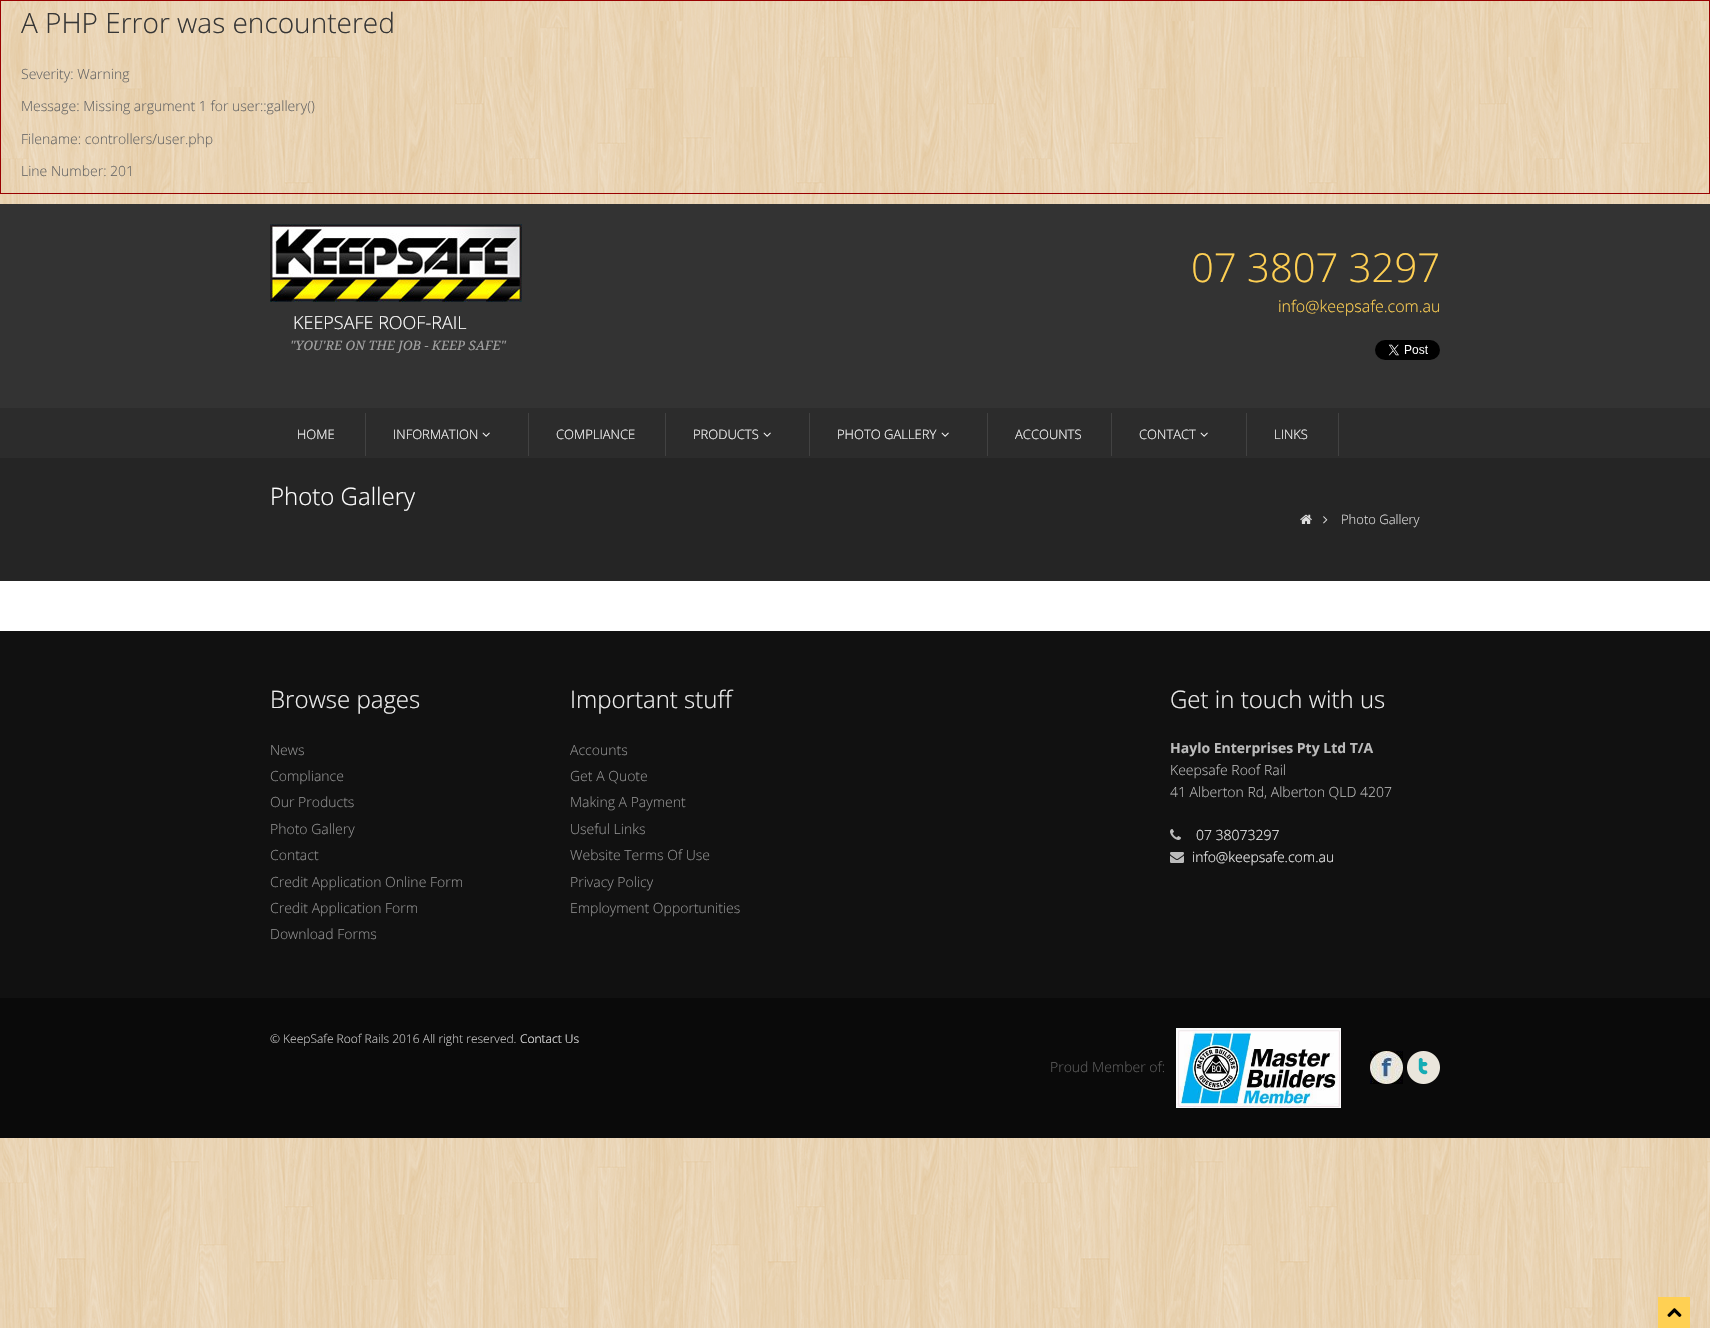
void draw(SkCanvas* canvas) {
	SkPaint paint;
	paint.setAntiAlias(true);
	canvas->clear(0xffffffff);
	canvas->drawImageRect(SkImages::DeferredFromEncodedData(SkData::MakeFromFileName("img1.png")), SkRect::MakeXYWH(0, 1, 1710, 1327), SkSamplingOptions());
	paint.setStroke(true);
	paint.setStrokeWidth(1);
	paint.setColor(0xff990000);
	canvas->drawRect(SkRect::MakeXYWH(0.5, 0.5, 1709, 193), paint);
	SkFont f1(fontMgr->matchFamilyStyle("Open Sans", SkFontStyle(300, SkFontStyle::kNormal_Width, SkFontStyle::kUpright_Slant)), 28);
	f1.setSubpixel(true);
	paint.setStroke(false);
	paint.setColor(0xff353535);
	canvas->drawString("A PHP Error was encountered", 21, 33, f1, paint);
	SkFont f2(fontMgr->matchFamilyStyle("Open Sans", SkFontStyle(300, SkFontStyle::kNormal_Width, SkFontStyle::kUpright_Slant)), 14);
	f2.setSubpixel(true);
	paint.setColor(0xff656565);
	canvas->drawString("Severity: Warning", 21, 79, f2, paint);
	canvas->drawString("Message: Missing argument 1 for user::gallery()", 21, 111, f2, paint);
	canvas->drawString("Filename: controllers/user.php", 21, 144, f2, paint);
	canvas->drawString("Line Number: 201", 21, 176, f2, paint);
	paint.setColor(0xff333333);
	canvas->drawRect(SkRect::MakeXYWH(0, 204, 1710, 204), paint);
	SkFont f3(fontMgr->matchFamilyStyle("Open Sans", SkFontStyle(300, SkFontStyle::kNormal_Width, SkFontStyle::kUpright_Slant)), 40);
	f3.setSubpixel(true);
	paint.setColor(0xffffd053);
	canvas->drawString("07 3807 3297", 1191, 282, f3, paint);
	SkFont f4(fontMgr->matchFamilyStyle("Open Sans", SkFontStyle(300, SkFontStyle::kNormal_Width, SkFontStyle::kUpright_Slant)), 16);
	f4.setSubpixel(true);
	canvas->drawString("info@keepsafe.com.au", 1278, 312, f4, paint);
	canvas->drawImageRect(SkImages::DeferredFromEncodedData(SkData::MakeFromFileName("img2.png")), SkRect::MakeXYWH(1375, 340, 65, 20), SkSamplingOptions());
	canvas->drawImageRect(SkImages::DeferredFromEncodedData(SkData::MakeFromFileName("img3.png")), SkRect::MakeXYWH(270, 224, 252, 78), SkSamplingOptions());
	SkFont f5(fontMgr->matchFamilyStyle("Open Sans", SkFontStyle(300, SkFontStyle::kNormal_Width, SkFontStyle::kUpright_Slant)), 18);
	f5.setSubpixel(true);
	paint.setColor(0xffffffff);
	canvas->drawString("KEEPSAFE ROOF-RAIL", 293, 329, f5, paint);
	SkFont f6(fontMgr->matchFamilyStyle("Noto Serif", SkFontStyle::Italic()), 13);
	f6.setSubpixel(true);
	paint.setColor(0xffa2a2a2);
	canvas->drawString("\"YOU'RE ON THE JOB - KEEP SAFE\"", 290, 350, f6, paint);
	paint.setColor(0xff2c2c2c);
	canvas->drawRect(SkRect::MakeXYWH(0, 408, 1710, 50), paint);
	paint.setColor(0xff424242);
	canvas->drawRect(SkRect::MakeXYWH(365, 413, 1, 43), paint);
	SkFont f7(fontMgr->matchFamilyStyle("Open Sans", SkFontStyle(300, SkFontStyle::kNormal_Width, SkFontStyle::kUpright_Slant)), 13);
	f7.setSubpixel(true);
	paint.setColor(0xffffffff);
	canvas->drawString("HOME", 297, 439, f7, paint);
	paint.setColor(0xff424242);
	canvas->drawRect(SkRect::MakeXYWH(528, 413, 1, 43), paint);
	paint.setColor(0xffffffff);
	canvas->drawString("INFORMATION", 393, 439, f7, paint);
	canvas->drawImageRect(SkImages::DeferredFromEncodedData(SkData::MakeFromFileName("img4.png")), SkRect::MakeXYWH(482, 432, 8, 5), SkSamplingOptions());
	paint.setColor(0xff424242);
	canvas->drawRect(SkRect::MakeXYWH(665, 413, 1, 43), paint);
	paint.setColor(0xffffffff);
	canvas->drawString("COMPLIANCE", 556, 439, f7, paint);
	paint.setColor(0xff424242);
	canvas->drawRect(SkRect::MakeXYWH(809, 413, 1, 43), paint);
	paint.setColor(0xffffffff);
	canvas->drawString("PRODUCTS", 693, 439, f7, paint);
	canvas->drawImageRect(SkImages::DeferredFromEncodedData(SkData::MakeFromFileName("img4.png")), SkRect::MakeXYWH(763, 432, 8, 5), SkSamplingOptions());
	paint.setColor(0xff424242);
	canvas->drawRect(SkRect::MakeXYWH(987, 413, 1, 43), paint);
	paint.setColor(0xffffffff);
	canvas->drawString("PHOTO GALLERY", 837, 439, f7, paint);
	canvas->drawImageRect(SkImages::DeferredFromEncodedData(SkData::MakeFromFileName("img4.png")), SkRect::MakeXYWH(941, 432, 8, 5), SkSamplingOptions());
	paint.setColor(0xff424242);
	canvas->drawRect(SkRect::MakeXYWH(1111, 413, 1, 43), paint);
	paint.setColor(0xffffffff);
	canvas->drawString("ACCOUNTS", 1015, 439, f7, paint);
	paint.setColor(0xff424242);
	canvas->drawRect(SkRect::MakeXYWH(1246, 413, 1, 43), paint);
	paint.setColor(0xffffffff);
	canvas->drawString("CONTACT", 1139, 439, f7, paint);
	canvas->drawImageRect(SkImages::DeferredFromEncodedData(SkData::MakeFromFileName("img4.png")), SkRect::MakeXYWH(1200, 432, 8, 5), SkSamplingOptions());
	paint.setColor(0xff424242);
	canvas->drawRect(SkRect::MakeXYWH(1338, 413, 1, 43), paint);
	paint.setColor(0xffffffff);
	canvas->drawString("LINKS", 1274, 439, f7, paint);
	paint.setColor(0xff252525);
	canvas->drawRect(SkRect::MakeXYWH(0, 458, 1710, 123), paint);
	SkFont f8(fontMgr->matchFamilyStyle("Open Sans", SkFontStyle(300, SkFontStyle::kNormal_Width, SkFontStyle::kUpright_Slant)), 24);
	f8.setSubpixel(true);
	paint.setColor(0xffffffff);
	canvas->drawString("Photo Gallery", 270, 505, f8, paint);
	canvas->drawImageRect(SkImages::DeferredFromEncodedData(SkData::MakeFromFileName("img5.png")), SkRect::MakeXYWH(1300, 514, 12, 10), SkSamplingOptions());
	canvas->drawImageRect(SkImages::DeferredFromEncodedData(SkData::MakeFromFileName("img6.png")), SkRect::MakeXYWH(1323, 516, 5, 8), SkSamplingOptions());
	paint.setColor(0xffdddddd);
	canvas->drawString("Photo Gallery", 1341, 524, f7, paint);
	paint.setColor(0xffffffff);
	canvas->drawRect(SkRect::MakeXYWH(0, 581, 1710, 50), paint);
	paint.setColor(0xff111111);
	canvas->drawRect(SkRect::MakeXYWH(0, 631, 1710, 367), paint);
	paint.setColor(0xffeeeeee);
	canvas->drawString("Browse pages", 270, 708, f8, paint);
	paint.setColor(0xff919191);
	canvas->drawString("News", 270, 755, f2, paint);
	canvas->drawString("Compliance", 270, 781, f2, paint);
	canvas->drawString("Our Products", 270, 807, f2, paint);
	canvas->drawString("Photo Gallery", 270, 834, f2, paint);
	canvas->drawString("Contact", 270, 860, f2, paint);
	canvas->drawString("Credit Application Online Form", 270, 887, f2, paint);
	canvas->drawString("Credit Application Form", 270, 913, f2, paint);
	canvas->drawString("Download Forms", 270, 939, f2, paint);
	paint.setColor(0xffeeeeee);
	canvas->drawString("Important stuff", 570, 708, f8, paint);
	paint.setColor(0xff919191);
	canvas->drawString("Accounts", 570, 755, f2, paint);
	canvas->drawString("Get A Quote", 570, 781, f2, paint);
	canvas->drawString("Making A Payment", 570, 807, f2, paint);
	canvas->drawString("Useful Links", 570, 834, f2, paint);
	canvas->drawString("Website Terms Of Use", 570, 860, f2, paint);
	canvas->drawString("Privacy Policy", 570, 887, f2, paint);
	canvas->drawString("Employment Opportunities", 570, 913, f2, paint);
	paint.setColor(0xffeeeeee);
	canvas->drawString("Get in touch with us", 1170, 708, f8, paint);
	SkFont f9(fontMgr->matchFamilyStyle("Open Sans", SkFontStyle::Bold()), 14);
	f9.setSubpixel(true);
	paint.setColor(0xffbbbbbb);
	canvas->drawString("Haylo Enterprises Pty Ltd T/A", 1170, 753, f9, paint);
	canvas->drawString("Keepsafe Roof Rail", 1170, 775, f2, paint);
	canvas->drawString("41 Alberton Rd, Alberton QLD 4207", 1170, 797, f2, paint);
	canvas->drawImageRect(SkImages::DeferredFromEncodedData(SkData::MakeFromFileName("img7.png")), SkRect::MakeXYWH(1170, 829, 11, 11), SkSamplingOptions());
	paint.setColor(0xffeeeeee);
	canvas->drawString("07 38073297", 1196, 840, f2, paint);
	canvas->drawImageRect(SkImages::DeferredFromEncodedData(SkData::MakeFromFileName("img8.png")), SkRect::MakeXYWH(1170, 852, 14, 11), SkSamplingOptions());
	canvas->drawString("info@keepsafe.com.au", 1192, 862, f2, paint);
	paint.setColor(0xff0a0a0a);
	canvas->drawRect(SkRect::MakeXYWH(0, 998, 1710, 140), paint);
	SkFont f10(fontMgr->matchFamilyStyle("Open Sans", SkFontStyle(300, SkFontStyle::kNormal_Width, SkFontStyle::kUpright_Slant)), 12);
	f10.setSubpixel(true);
	paint.setColor(0xffc7c7c7);
	canvas->drawString("© KeepSafe Roof Rails 2016 All right reserved.", 270, 1043, f10, paint);
	paint.setColor(0xffeeeeee);
	canvas->drawString("Contact Us", 520, 1043, f10, paint);
	paint.setColor(0xff5d5d5d);
	canvas->drawString("Proud Member of:", 1050, 1072, f2, paint);
	canvas->drawImageRect(SkImages::DeferredFromEncodedData(SkData::MakeFromFileName("img9.png")), SkRect::MakeXYWH(1176, 1028, 165, 80), SkSamplingOptions());
	canvas->drawImageRect(SkImages::DeferredFromEncodedData(SkData::MakeFromFileName("img10.png")), SkRect::MakeXYWH(1370, 1051, 33, 33), SkSamplingOptions());
	canvas->drawImageRect(SkImages::DeferredFromEncodedData(SkData::MakeFromFileName("img11.png")), SkRect::MakeXYWH(1407, 1051, 33, 33), SkSamplingOptions());
	paint.setColor(0xffffd053);
	canvas->drawRect(SkRect::MakeXYWH(1658, 1297, 32, 31), paint);
	canvas->drawImageRect(SkImages::DeferredFromEncodedData(SkData::MakeFromFileName("img12.png")), SkRect::MakeXYWH(1667, 1308, 15, 9), SkSamplingOptions());
}
